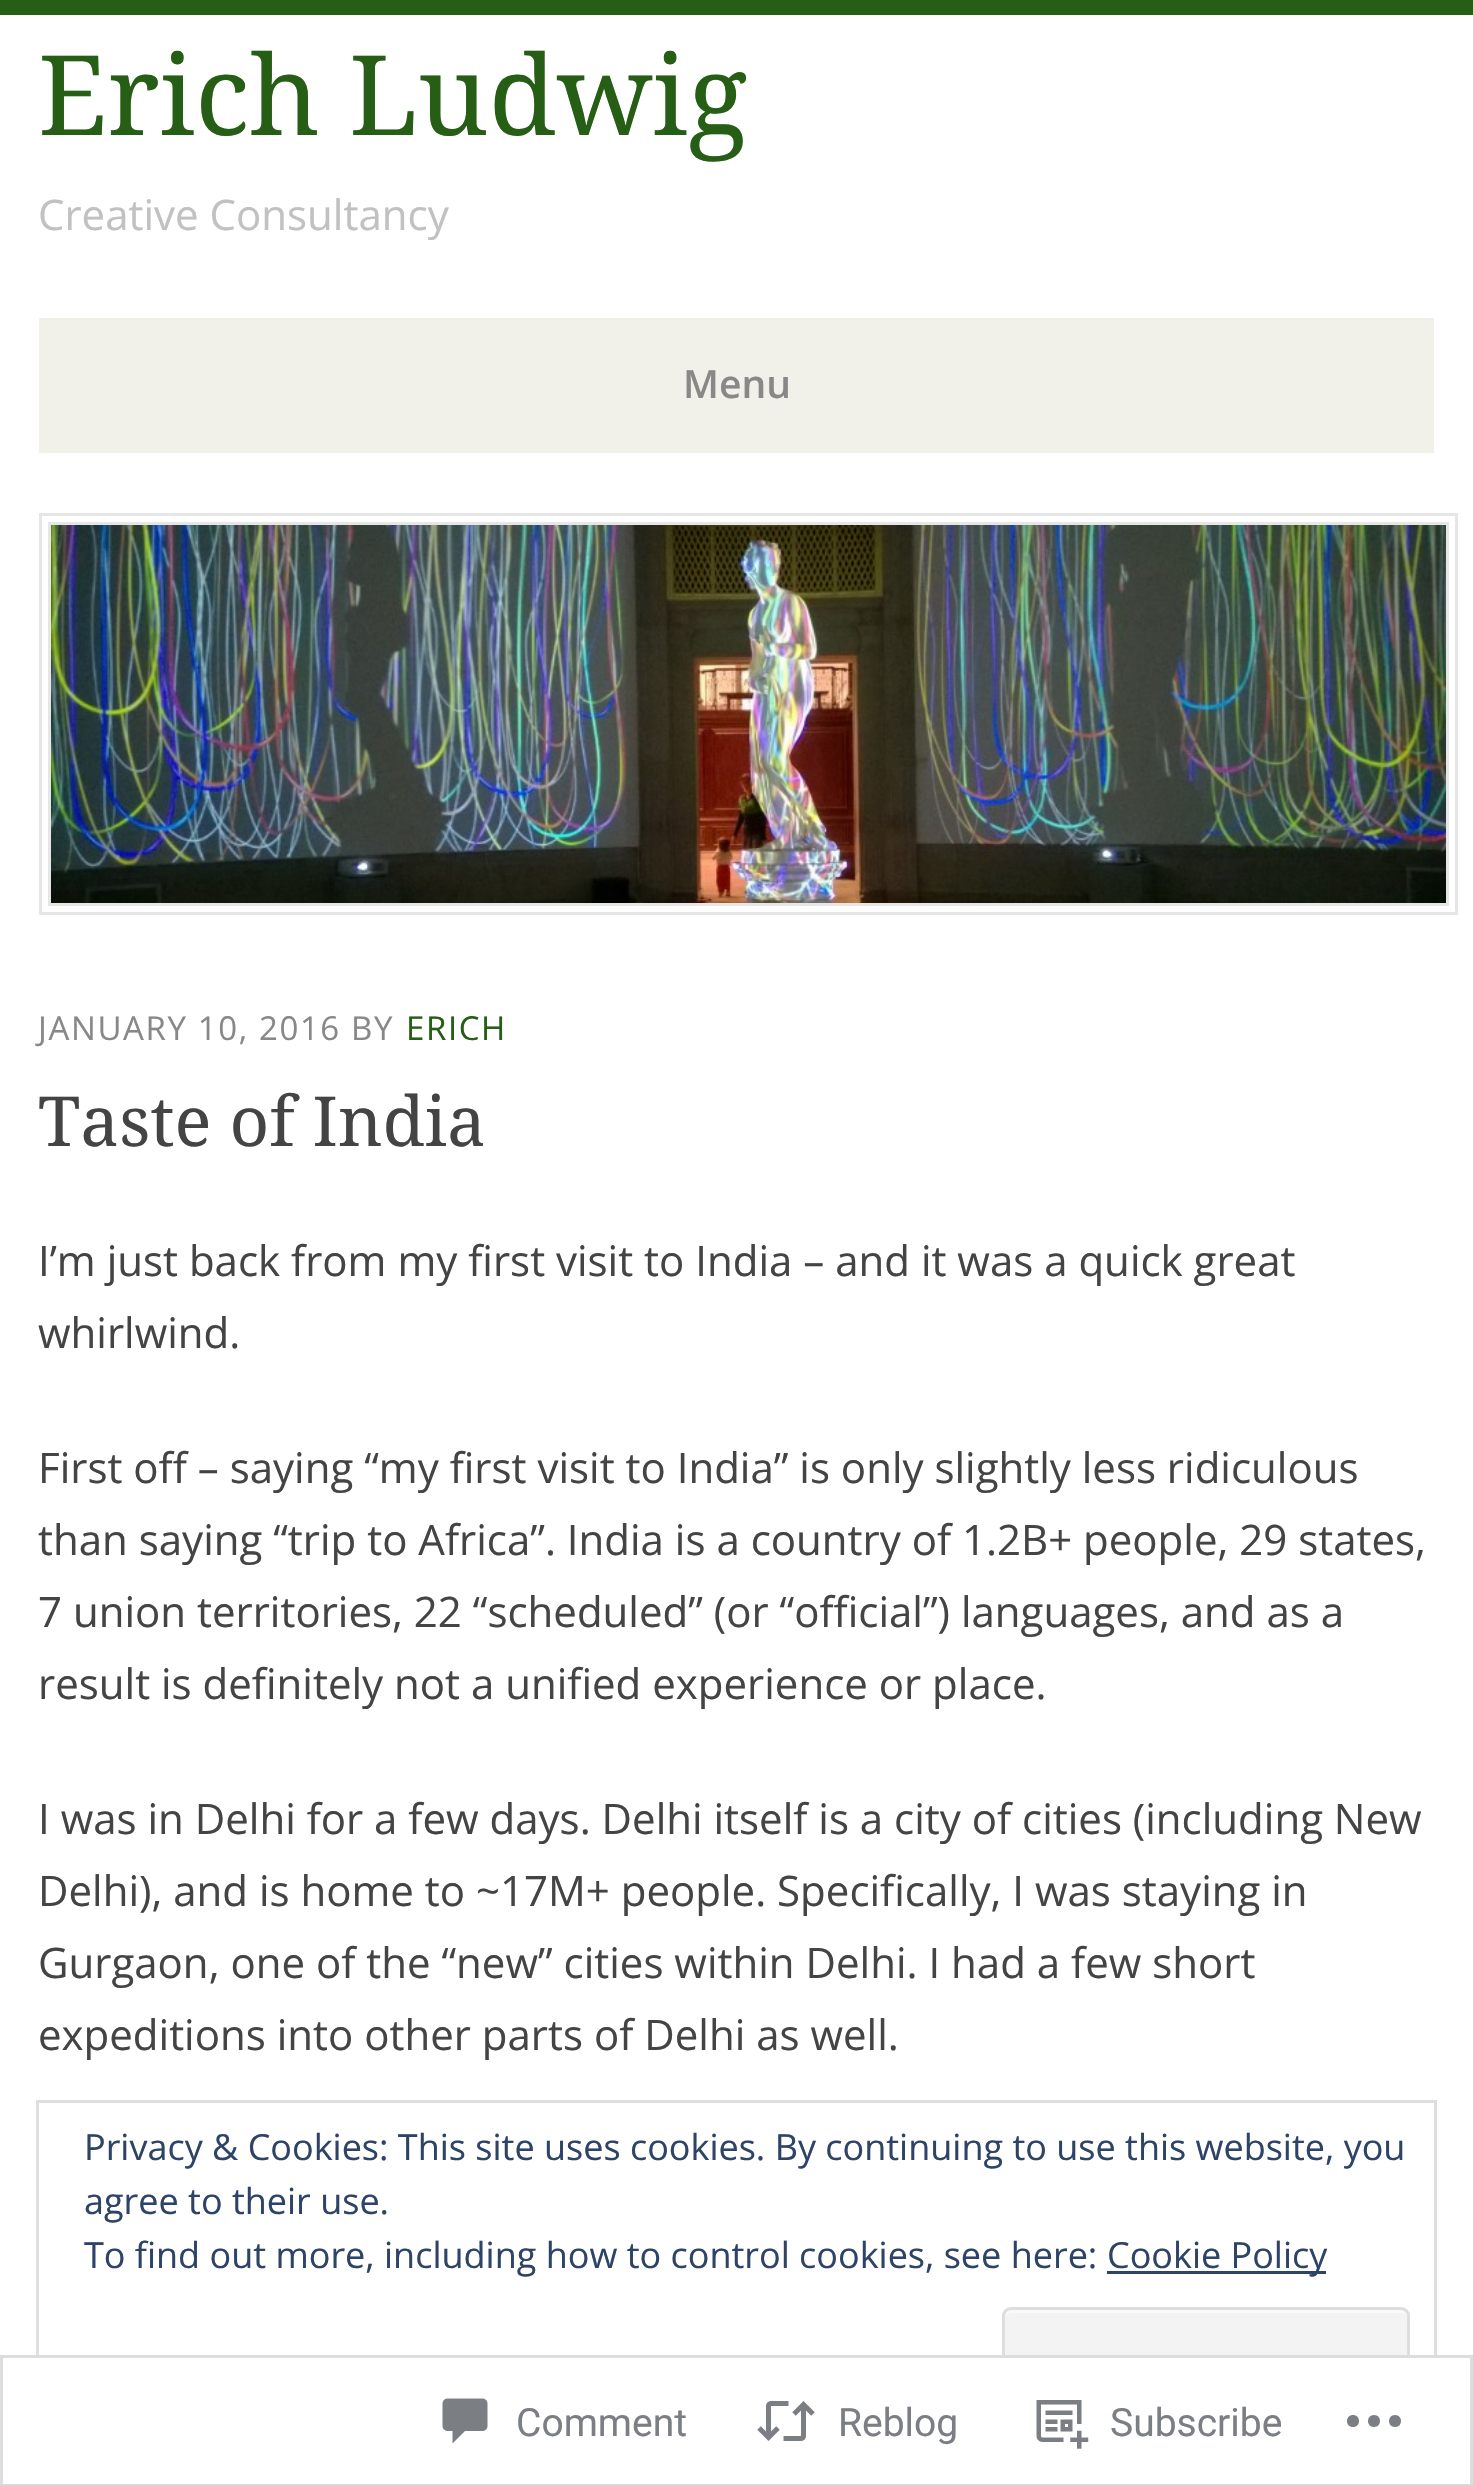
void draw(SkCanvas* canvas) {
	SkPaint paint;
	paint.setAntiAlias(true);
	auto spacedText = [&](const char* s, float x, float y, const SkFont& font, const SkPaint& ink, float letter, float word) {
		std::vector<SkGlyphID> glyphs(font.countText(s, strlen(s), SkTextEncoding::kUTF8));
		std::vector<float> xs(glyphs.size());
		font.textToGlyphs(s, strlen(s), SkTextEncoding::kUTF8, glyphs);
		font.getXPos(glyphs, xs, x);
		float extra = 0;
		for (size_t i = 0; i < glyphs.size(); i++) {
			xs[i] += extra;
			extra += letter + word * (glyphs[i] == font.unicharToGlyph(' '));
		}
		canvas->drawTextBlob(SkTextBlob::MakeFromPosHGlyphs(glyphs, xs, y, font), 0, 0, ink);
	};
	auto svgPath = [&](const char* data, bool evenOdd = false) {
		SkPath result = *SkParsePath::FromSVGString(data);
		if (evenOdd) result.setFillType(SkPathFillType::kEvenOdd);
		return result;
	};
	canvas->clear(0xff265e15);
	paint.setColor(0xffffffff);
	canvas->drawRect(SkRect::MakeXYWH(0, 15, 1473, 2470), paint);
	SkFont f1(fontMgr->matchFamilyStyle("Droid Serif", SkFontStyle::Normal()), 111);
	f1.setSubpixel(true);
	paint.setColor(0xff265e15);
	canvas->drawString("Erich Ludwig", 38, 135, f1, paint);
	SkFont f2(fontMgr->matchFamilyStyle("Open Sans", SkFontStyle::Normal()), 42);
	f2.setSubpixel(true);
	paint.setColor(0xffc1c1c1);
	canvas->drawString("Creative Consultancy", 38, 230, f2, paint);
	paint.setColor(0xfff1f1e9);
	canvas->drawRect(SkRect::MakeXYWH(39, 318, 1395, 135), paint);
	SkFont f3(fontMgr->matchFamilyStyle("Open Sans", SkFontStyle(600, SkFontStyle::kNormal_Width, SkFontStyle::kUpright_Slant)), 39);
	f3.setSubpixel(true);
	paint.setColor(0xff888888);
	canvas->drawString("Menu", 683, 398, f3, paint);
	paint.setStroke(true);
	paint.setStrokeWidth(3);
	paint.setColor(0xffe6e6e6);
	canvas->drawRect(SkRect::MakeXYWH(40.5, 514.5, 1416, 399), paint);
	canvas->drawRect(SkRect::MakeXYWH(49.5, 523.5, 1398, 381), paint);
	canvas->drawImageRect(SkImages::DeferredFromEncodedData(SkData::MakeFromFileName("img1.png")), SkRect::MakeXYWH(51, 525, 1395, 378), SkSamplingOptions());
	SkFont f4(fontMgr->matchFamilyStyle("Open Sans", SkFontStyle::Normal()), 33);
	f4.setSubpixel(true);
	paint.setStroke(false);
	paint.setColor(0xff888888);
	spacedText("JANUARY 10, 2016 BY", 38, 1040, f4, paint, 1.6, 0);
	paint.setColor(0xff265e15);
	spacedText("ERICH", 406, 1040, f4, paint, 1.6, 0);
	SkFont f5(fontMgr->matchFamilyStyle("Droid Serif", SkFontStyle::Normal()), 69);
	f5.setSubpixel(true);
	paint.setColor(0xff444444);
	canvas->drawString("Taste of India", 38, 1146, f5, paint);
	canvas->drawString("I’m just back from my first visit to India – and it was a quick great", 38, 1276, f2, paint);
	canvas->drawString("whirlwind.", 38, 1348, f2, paint);
	canvas->drawString("First off – saying “my first visit to India” is only slightly less ridiculous", 38, 1483, f2, paint);
	canvas->drawString("than saying “trip to Africa”. India is a country of 1.2B+ people, 29 states,", 38, 1555, f2, paint);
	canvas->drawString("7 union territories, 22 “scheduled” (or “official”) languages, and as a", 38, 1627, f2, paint);
	canvas->drawString("result is definitely not a unified experience or place.", 38, 1699, f2, paint);
	canvas->drawString("I was in Delhi for a few days. Delhi itself is a city of cities (including New", 38, 1834, f2, paint);
	canvas->drawString("Delhi), and is home to ~17M+ people. Specifically, I was staying in", 38, 1906, f2, paint);
	canvas->drawString("Gurgaon, one of the “new” cities within Delhi. I had a few short", 38, 1978, f2, paint);
	canvas->drawString("expeditions into other parts of Delhi as well.", 38, 2050, f2, paint);
	paint.setStroke(true);
	paint.setColor(0xffdedede);
	canvas->drawRect(SkRect::MakeXYWH(37.5, 2101.5, 1398, 348), paint);
	SkFont f6(fontMgr->matchFamilyStyle("Open Sans", SkFontStyle::Normal()), 36);
	f6.setSubpixel(true);
	paint.setStroke(false);
	paint.setColor(0xff2e4467);
	canvas->drawString("Privacy & Cookies: This site uses cookies. By continuing to use this website, you", 84, 2160, f6, paint);
	canvas->drawString("agree to their use.", 84, 2214, f6, paint);
	canvas->drawString("To find out more, including how to control cookies, see here:", 84, 2268, f6, paint);
	canvas->drawRect(SkRect::MakeXYWH(1107, 2271, 219, 3), paint);
	canvas->drawString("Cookie Policy", 1107, 2268, f6, paint);
	paint.setColor(0xfff3f3f3);
	canvas->drawRoundRect(SkRect::MakeXYWH(1002, 2307, 408, 117), 9, 9, paint);
	paint.setColor(0xfff9f9f9);
	canvas->drawPath(svgPath("M1011 2313H1401C1404 2313 1407 2316 1407 2319C1407 2315 1406 2310 1401 2310H1010C1005 2311 1005 2315 1005 2319C1005 2316 1008 2313 1011 2313Z"), paint);
	paint.setStroke(true);
	paint.setColor(0xffdedede);
	canvas->drawRoundRect(SkRect::MakeXYWH(1003.5, 2308.5, 405, 114), 7.5, 7.5, paint);
	paint.setStroke(false);
	paint.setColor(0xfaffffff);
	canvas->drawRect(SkRect::MakeXYWH(36, 2355, 1401, 96), paint);
	paint.setStroke(true);
	paint.setColor(0xfadcdcde);
	canvas->drawRect(SkRect::MakeXYWH(1.5, 2356.5, 1470, 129), paint);
	canvas->drawImageRect(SkImages::DeferredFromEncodedData(SkData::MakeFromFileName("img2.png")), SkRect::MakeXYWH(442, 2398, 46, 46), SkSamplingOptions());
	SkFont f7(fontMgr->matchFamilyStyle("Roboto", SkFontStyle::Normal()), 39);
	f7.setSubpixel(true);
	paint.setStroke(false);
	paint.setColor(0xff7b7f85);
	canvas->drawString("Comment", 516, 2436, f7, paint);
	canvas->drawImageRect(SkImages::DeferredFromEncodedData(SkData::MakeFromFileName("img3.png")), SkRect::MakeXYWH(757, 2401, 58, 40), SkSamplingOptions());
	canvas->drawString("Reblog", 838, 2436, f7, paint);
	canvas->drawImageRect(SkImages::DeferredFromEncodedData(SkData::MakeFromFileName("img4.png")), SkRect::MakeXYWH(1036, 2400, 53, 49), SkSamplingOptions());
	canvas->drawString("Subscribe", 1110, 2436, f7, paint);
	paint.setColor(0xff7b7f84);
	canvas->drawPath(svgPath("M1359 2421C1359 2429 1347 2429 1347 2421C1347 2413 1359 2413 1359 2421ZM1395 2415C1387 2415 1387 2427 1395 2427C1403 2427 1403 2415 1395 2415ZM1374 2415C1366 2415 1366 2427 1374 2427C1382 2427 1382 2415 1374 2415Z"), paint);
}
